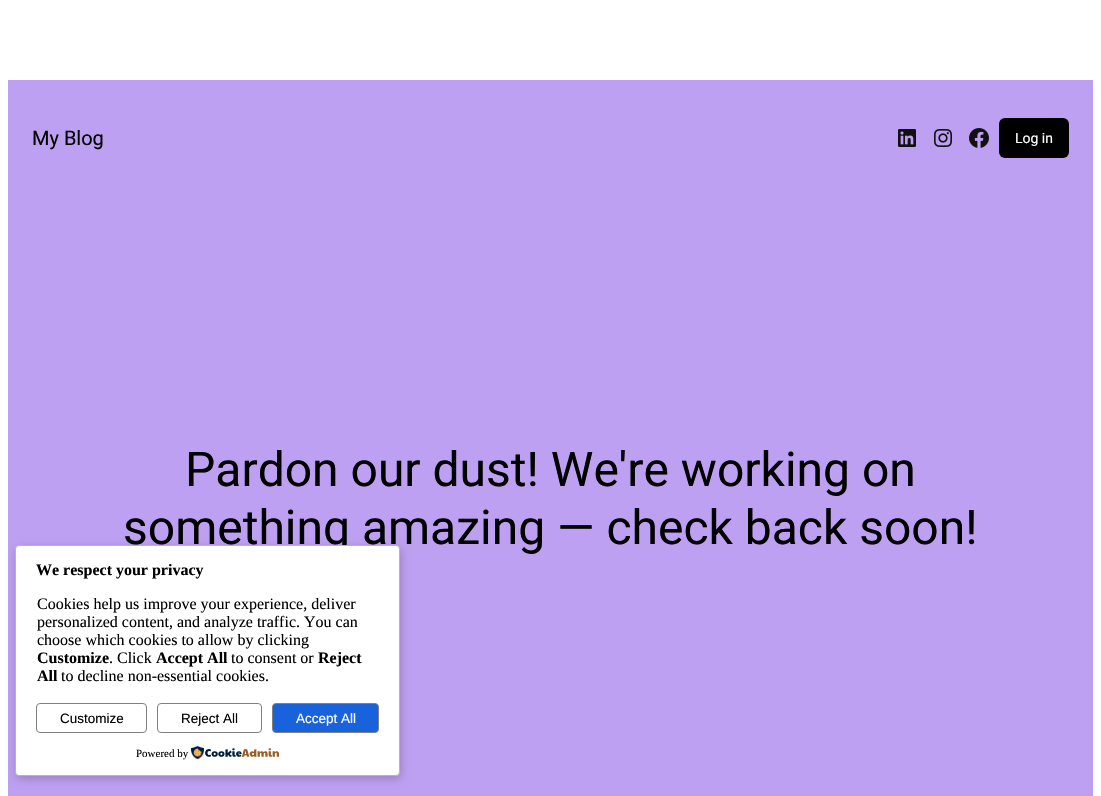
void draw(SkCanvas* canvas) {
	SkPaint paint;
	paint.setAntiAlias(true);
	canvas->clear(0xffffffff);
	paint.setColor(0xffbea0f2);
	canvas->drawRect(SkRect::MakeXYWH(8, 80, 1085, 716), paint);
	SkFont f1(fontMgr->matchFamilyStyle("Roboto", SkFontStyle::Normal()), 20);
	f1.setSubpixel(true);
	paint.setColor(0xff000000);
	canvas->drawString("My Blog", 32, 145, f1, paint);
	canvas->drawImageRect(SkImages::DeferredFromEncodedData(SkData::MakeFromFileName("img1.png")), SkRect::MakeXYWH(898, 129, 18, 18), SkSamplingOptions());
	canvas->drawImageRect(SkImages::DeferredFromEncodedData(SkData::MakeFromFileName("img2.png")), SkRect::MakeXYWH(934, 129, 18, 18), SkSamplingOptions());
	canvas->drawImageRect(SkImages::DeferredFromEncodedData(SkData::MakeFromFileName("img3.png")), SkRect::MakeXYWH(969, 128, 20, 20), SkSamplingOptions());
	canvas->drawRoundRect(SkRect::MakeXYWH(999, 118, 70, 40), 6, 6, paint);
	SkFont f2(fontMgr->matchFamilyStyle("Roboto", SkFontStyle::Normal()), 14);
	f2.setSubpixel(true);
	paint.setColor(0xffffffff);
	canvas->drawString("Log in", 1015, 143, f2, paint);
	SkFont f3(fontMgr->matchFamilyStyle("Roboto", SkFontStyle::Normal()), 48);
	f3.setSubpixel(true);
	paint.setColor(0xff000000);
	canvas->drawString("Pardon our dust! We're working on", 185, 486, f3, paint);
	canvas->drawString("something amazing — check back soon!", 123, 544, f3, paint);
	paint.setColor(0x33000000);
	paint.setMaskFilter(SkMaskFilter::MakeBlur(kNormal_SkBlurStyle, 5));
	canvas->drawRoundRect(SkRect::MakeXYWH(16, 548, 385, 231), 4, 4, paint);
	paint.setMaskFilter(nullptr);
	paint.setColor(0xffffffff);
	canvas->drawRoundRect(SkRect::MakeXYWH(15.5, 545.5, 384, 230), 3.5, 3.5, paint);
	paint.setStroke(true);
	paint.setStrokeWidth(1);
	paint.setColor(0xffabb8c3);
	canvas->drawRoundRect(SkRect::MakeXYWH(15.5, 545.5, 384, 230), 3.5, 3.5, paint);
	SkFont f4(fontMgr->matchFamilyStyle("Liberation Serif", SkFontStyle::Bold()), 16);
	f4.setSubpixel(true);
	paint.setStroke(false);
	paint.setColor(0xff000000);
	canvas->drawString("We respect your privacy", 36, 575, f4, paint);
	SkFont f5(fontMgr->matchFamilyStyle("Liberation Serif", SkFontStyle::Normal()), 16);
	f5.setSubpixel(true);
	canvas->drawString("Cookies help us improve your experience, deliver", 37, 609, f5, paint);
	canvas->drawString("personalized content, and analyze traffic. You can", 37, 627, f5, paint);
	canvas->drawString("choose which cookies to allow by clicking", 37, 645, f5, paint);
	canvas->drawString("Customize", 37, 663, f4, paint);
	canvas->drawString(". Click", 109, 663, f5, paint);
	canvas->drawString("Accept All", 156, 663, f4, paint);
	canvas->drawString("to consent or", 231, 663, f5, paint);
	canvas->drawString("Reject", 318, 663, f4, paint);
	canvas->drawString("All", 37, 681, f4, paint);
	canvas->drawString("to decline non-essential cookies.", 61, 681, f5, paint);
	paint.setStroke(true);
	paint.setColor(0xff808080);
	canvas->drawRoundRect(SkRect::MakeXYWH(36.5, 703.5, 110, 29), 3.5, 3.5, paint);
	SkFont f6(fontMgr->matchFamilyStyle("Liberation Sans", SkFontStyle::Normal()), 13.5);
	f6.setSubpixel(true);
	paint.setStroke(false);
	paint.setColor(0xff000000);
	canvas->drawString("Customize", 60, 723, f6, paint);
	paint.setStroke(true);
	paint.setColor(0xff808080);
	canvas->drawRoundRect(SkRect::MakeXYWH(157.5, 703.5, 104, 29), 3.5, 3.5, paint);
	paint.setStroke(false);
	paint.setColor(0xff000000);
	canvas->drawString("Reject All", 181, 723, f6, paint);
	paint.setColor(0xff1863dc);
	canvas->drawRoundRect(SkRect::MakeXYWH(272.5, 703.5, 106, 29), 3.5, 3.5, paint);
	paint.setStroke(true);
	paint.setColor(0xff808080);
	canvas->drawRoundRect(SkRect::MakeXYWH(272.5, 703.5, 106, 29), 3.5, 3.5, paint);
	paint.setStroke(false);
	paint.setColor(0xffffffff);
	canvas->drawString("Accept All", 296, 723, f6, paint);
	SkFont f7(fontMgr->matchFamilyStyle("Liberation Serif", SkFontStyle::Normal()), 11);
	f7.setSubpixel(true);
	paint.setColor(0xff000000);
	canvas->drawString("Powered by", 136, 757, f7, paint);
	canvas->drawImageRect(SkImages::DeferredFromEncodedData(SkData::MakeFromFileName("img4.png")), SkRect::MakeXYWH(191, 746, 88, 14), SkSamplingOptions());
}
